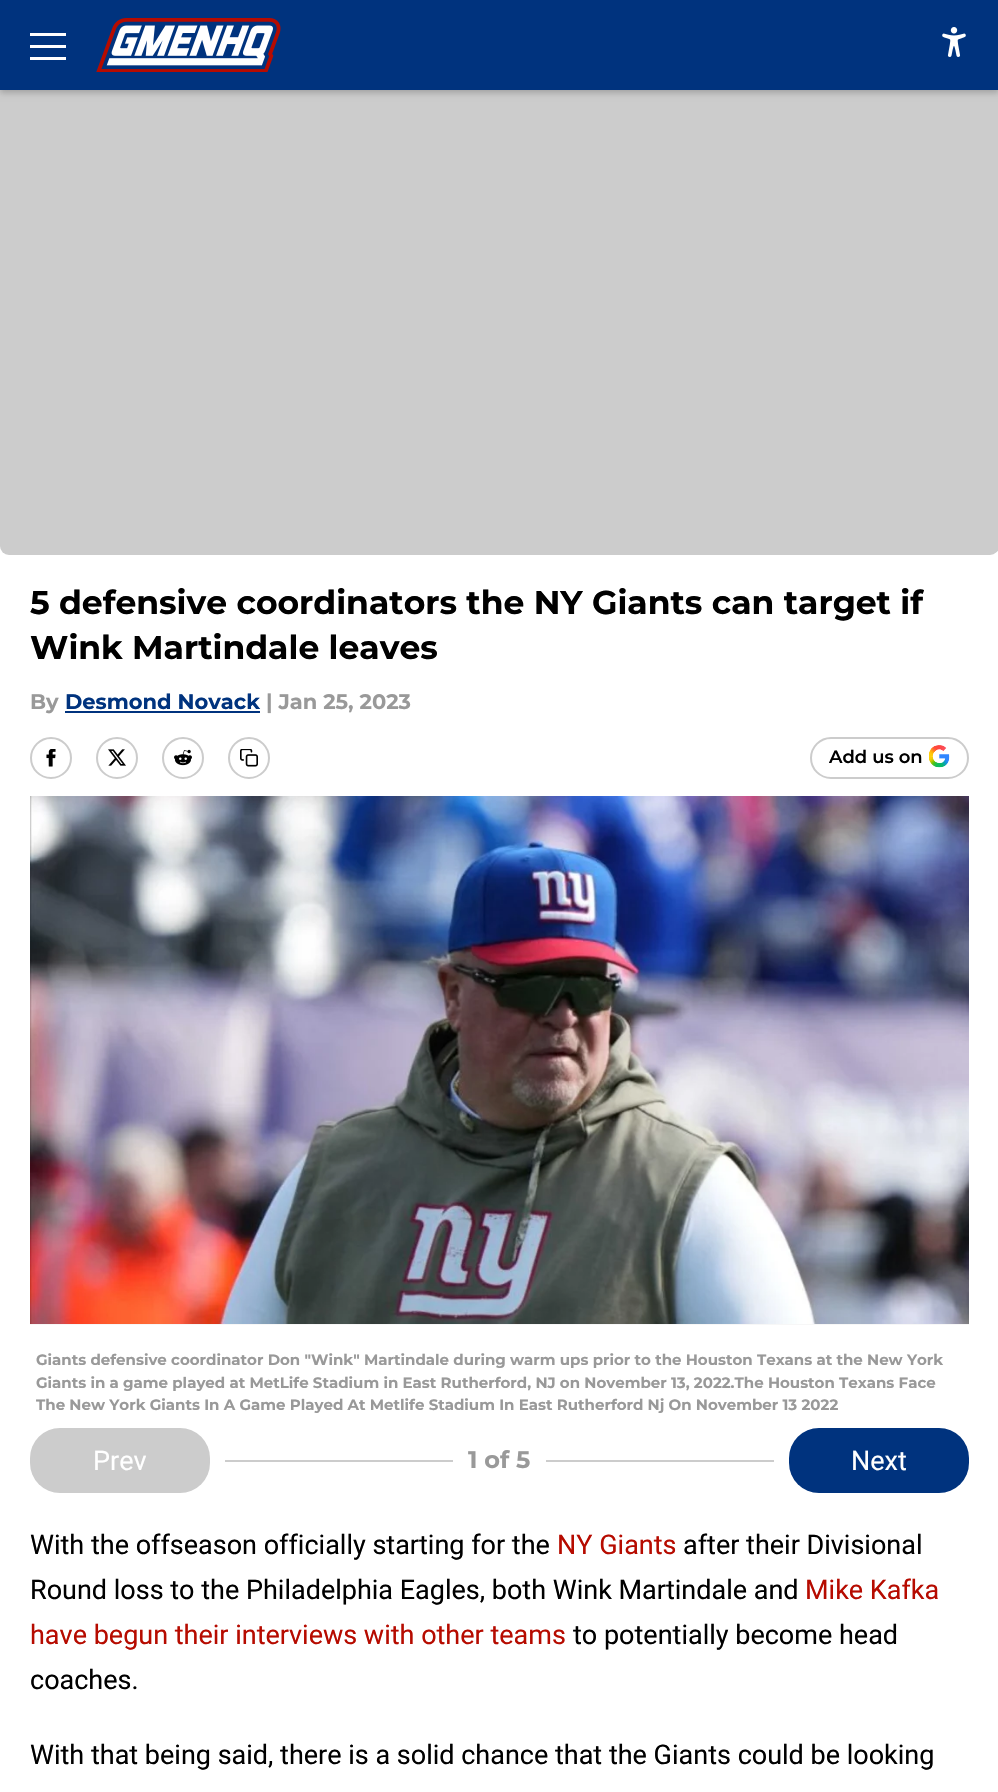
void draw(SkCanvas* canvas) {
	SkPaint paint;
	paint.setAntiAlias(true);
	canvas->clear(0xffffffff);
	paint.setColor(0xffcccccc);
	canvas->drawRoundRect(SkRect::MakeXYWH(0, -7, 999, 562), 9, 9, paint);
	paint.setColor(0x33000000);
	paint.setMaskFilter(SkMaskFilter::MakeBlur(kNormal_SkBlurStyle, 3));
	canvas->drawRect(SkRect::MakeXYWH(0, 3, 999, 90), paint);
	paint.setMaskFilter(nullptr);
	paint.setColor(0xff00337e);
	canvas->drawRect(SkRect::MakeXYWH(0, 0, 998, 90), paint);
	paint.setColor(0xffffffff);
	canvas->drawRect(SkRect::MakeXYWH(30, 33, 36, 3), paint);
	canvas->drawRect(SkRect::MakeXYWH(30, 45, 36, 3), paint);
	canvas->drawRect(SkRect::MakeXYWH(30, 57, 36, 3), paint);
	canvas->drawImageRect(SkImages::DeferredFromEncodedData(SkData::MakeFromFileName("img1.png")), SkRect::MakeXYWH(96, 18, 185, 54), SkSamplingOptions());
	canvas->drawImageRect(SkImages::DeferredFromEncodedData(SkData::MakeFromFileName("img2.png")), SkRect::MakeXYWH(942, 27, 24, 30), SkSamplingOptions());
	SkFont f1(fontMgr->matchFamilyStyle("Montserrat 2", SkFontStyle(100, SkFontStyle::kNormal_Width, SkFontStyle::kUpright_Slant)), 33);
	f1.setSubpixel(true);
	paint.setColor(0xff000000);
	canvas->drawString("5 defensive coordinators the NY Giants can target if", 30, 614, f1, paint);
	canvas->drawString("Wink Martindale leaves", 30, 659, f1, paint);
	SkFont f2(fontMgr->matchFamilyStyle("Montserrat 2", SkFontStyle(100, SkFontStyle::kNormal_Width, SkFontStyle::kUpright_Slant)), 21);
	f2.setSubpixel(true);
	paint.setColor(0xff999999);
	canvas->drawString("By", 30, 709, f2, paint);
	paint.setColor(0xff00337e);
	canvas->drawString("Desmond Novack", 65, 709, f2, paint);
	canvas->drawRect(SkRect::MakeXYWH(65, 711, 195, 2), paint);
	paint.setColor(0xff999999);
	canvas->drawString("| Jan 25, 2023", 266, 709, f2, paint);
	paint.setStroke(true);
	paint.setStrokeWidth(2);
	paint.setColor(0xffcccccc);
	canvas->drawCircle(51, 758, 20, paint);
	canvas->drawImageRect(SkImages::DeferredFromEncodedData(SkData::MakeFromFileName("img3.png")), SkRect::MakeXYWH(46, 749, 10, 18), SkSamplingOptions());
	canvas->drawCircle(117, 758, 20, paint);
	canvas->drawImageRect(SkImages::DeferredFromEncodedData(SkData::MakeFromFileName("img4.png")), SkRect::MakeXYWH(108, 749, 18, 17), SkSamplingOptions());
	canvas->drawCircle(183, 758, 20, paint);
	canvas->drawImageRect(SkImages::DeferredFromEncodedData(SkData::MakeFromFileName("img5.png")), SkRect::MakeXYWH(174, 749, 18, 17), SkSamplingOptions());
	canvas->drawCircle(249, 758, 20, paint);
	canvas->drawImageRect(SkImages::DeferredFromEncodedData(SkData::MakeFromFileName("img6.png")), SkRect::MakeXYWH(240, 749, 18, 18), SkSamplingOptions());
	canvas->drawRoundRect(SkRect::MakeXYWH(811, 738, 157, 40), 20, 20, paint);
	SkFont f3(fontMgr->matchFamilyStyle("Montserrat", SkFontStyle(100, SkFontStyle::kNormal_Width, SkFontStyle::kUpright_Slant)), 18);
	f3.setSubpixel(true);
	paint.setStroke(false);
	paint.setColor(0xff000000);
	canvas->drawString("Add us on", 829, 763, f3, paint);
	canvas->drawImageRect(SkImages::DeferredFromEncodedData(SkData::MakeFromFileName("img7.png")), SkRect::MakeXYWH(929, 745, 21, 23), SkSamplingOptions());
	paint.setColor(0xfff7f7f7);
	canvas->drawRect(SkRect::MakeXYWH(30, 1324, 939, 1), paint);
	canvas->drawImageRect(SkImages::DeferredFromEncodedData(SkData::MakeFromFileName("img8.png")), SkRect::MakeXYWH(30, 796, 939, 528), SkSamplingOptions());
	SkFont f4(fontMgr->matchFamilyStyle("Montserrat 2", SkFontStyle(100, SkFontStyle::kNormal_Width, SkFontStyle::kUpright_Slant)), 15);
	f4.setSubpixel(true);
	paint.setColor(0xff999999);
	canvas->drawString("Giants defensive coordinator Don \"Wink\" Martindale during warm ups prior to the Houston Texans at the New York", 36, 1365, f4, paint);
	canvas->drawString("Giants in a game played at MetLife Stadium in East Rutherford, NJ on November 13, 2022.The Houston Texans Face", 36, 1388, f4, paint);
	canvas->drawString("The New York Giants In A Game Played At Metlife Stadium In East Rutherford Nj On November 13 2022", 36, 1410, f4, paint);
	paint.setColor(0xffcccccc);
	canvas->drawRoundRect(SkRect::MakeXYWH(30, 1428, 180, 65), 30, 30, paint);
	SkFont f5(fontMgr->matchFamilyStyle("Roboto", SkFontStyle::Normal()), 27);
	f5.setSubpixel(true);
	paint.setColor(0xffffffff);
	canvas->drawString("Prev", 93, 1470, f5, paint);
	paint.setColor(0xffcccccc);
	canvas->drawRect(SkRect::MakeXYWH(225, 1460, 228, 2), paint);
	SkFont f6(fontMgr->matchFamilyStyle("Montserrat 2", SkFontStyle(100, SkFontStyle::kNormal_Width, SkFontStyle::kUpright_Slant)), 24);
	f6.setSubpixel(true);
	paint.setColor(0xff999999);
	canvas->drawString("1 of 5", 468, 1468, f6, paint);
	paint.setColor(0xffcccccc);
	canvas->drawRect(SkRect::MakeXYWH(546, 1460, 228, 2), paint);
	paint.setColor(0xff00337e);
	canvas->drawRoundRect(SkRect::MakeXYWH(789, 1428, 180, 65), 30, 30, paint);
	paint.setColor(0xffffffff);
	canvas->drawString("Next", 851, 1470, f5, paint);
	paint.setColor(0xff000000);
	canvas->drawString("With the offseason officially starting for the", 30, 1554, f5, paint);
	paint.setColor(0xffb60b00);
	canvas->drawString("NY Giants", 557, 1554, f5, paint);
	paint.setColor(0xff000000);
	canvas->drawString("after their Divisional", 683, 1554, f5, paint);
	canvas->drawString("Round loss to the Philadelphia Eagles, both Wink Martindale and", 30, 1599, f5, paint);
	paint.setColor(0xffb60b00);
	canvas->drawString("Mike Kafka", 805, 1599, f5, paint);
	canvas->drawString("have begun their interviews with other teams", 30, 1644, f5, paint);
	paint.setColor(0xff000000);
	canvas->drawString("to potentially become head", 573, 1644, f5, paint);
	canvas->drawString("coaches.", 30, 1689, f5, paint);
	canvas->drawString("With that being said, there is a solid chance that the Giants could be looking", 30, 1764, f5, paint);
}
